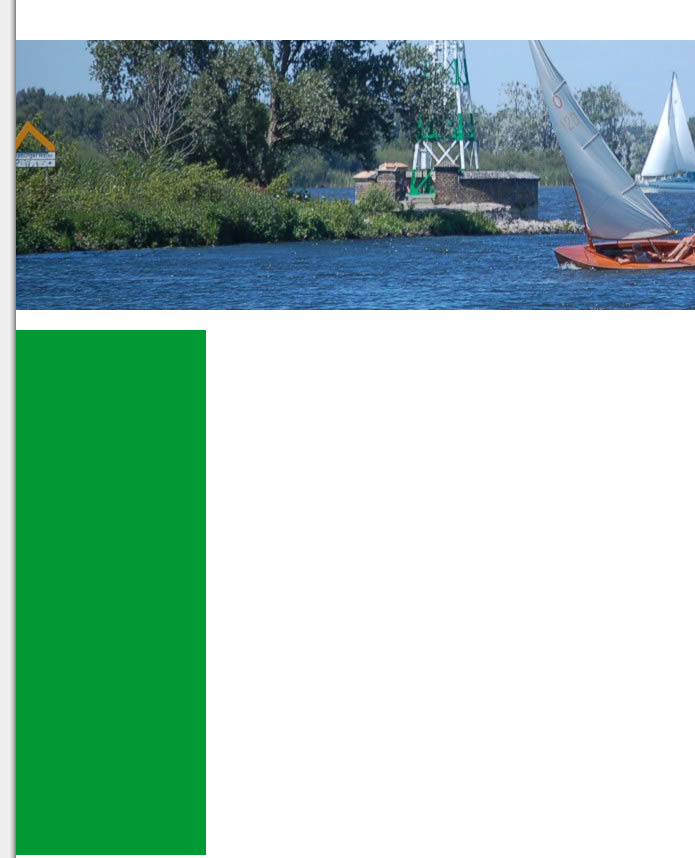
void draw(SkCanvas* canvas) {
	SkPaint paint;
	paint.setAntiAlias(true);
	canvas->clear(0xffeeeeee);
	paint.setColor(0xffffffff);
	canvas->drawRect(SkRect::MakeXYWH(16, 0, 679, 858), paint);
	canvas->drawImageRect(SkImages::DeferredFromEncodedData(SkData::MakeFromFileName("img1.png")), SkRect::MakeXYWH(10, 0, 6, 858), SkSamplingOptions());
	canvas->drawImageRect(SkImages::DeferredFromEncodedData(SkData::MakeFromFileName("img2.png")), SkRect::MakeXYWH(16, 40, 679, 270), SkSamplingOptions());
	paint.setColor(0xff009933);
	canvas->drawRect(SkRect::MakeXYWH(16, 330, 190, 525), paint);
}
